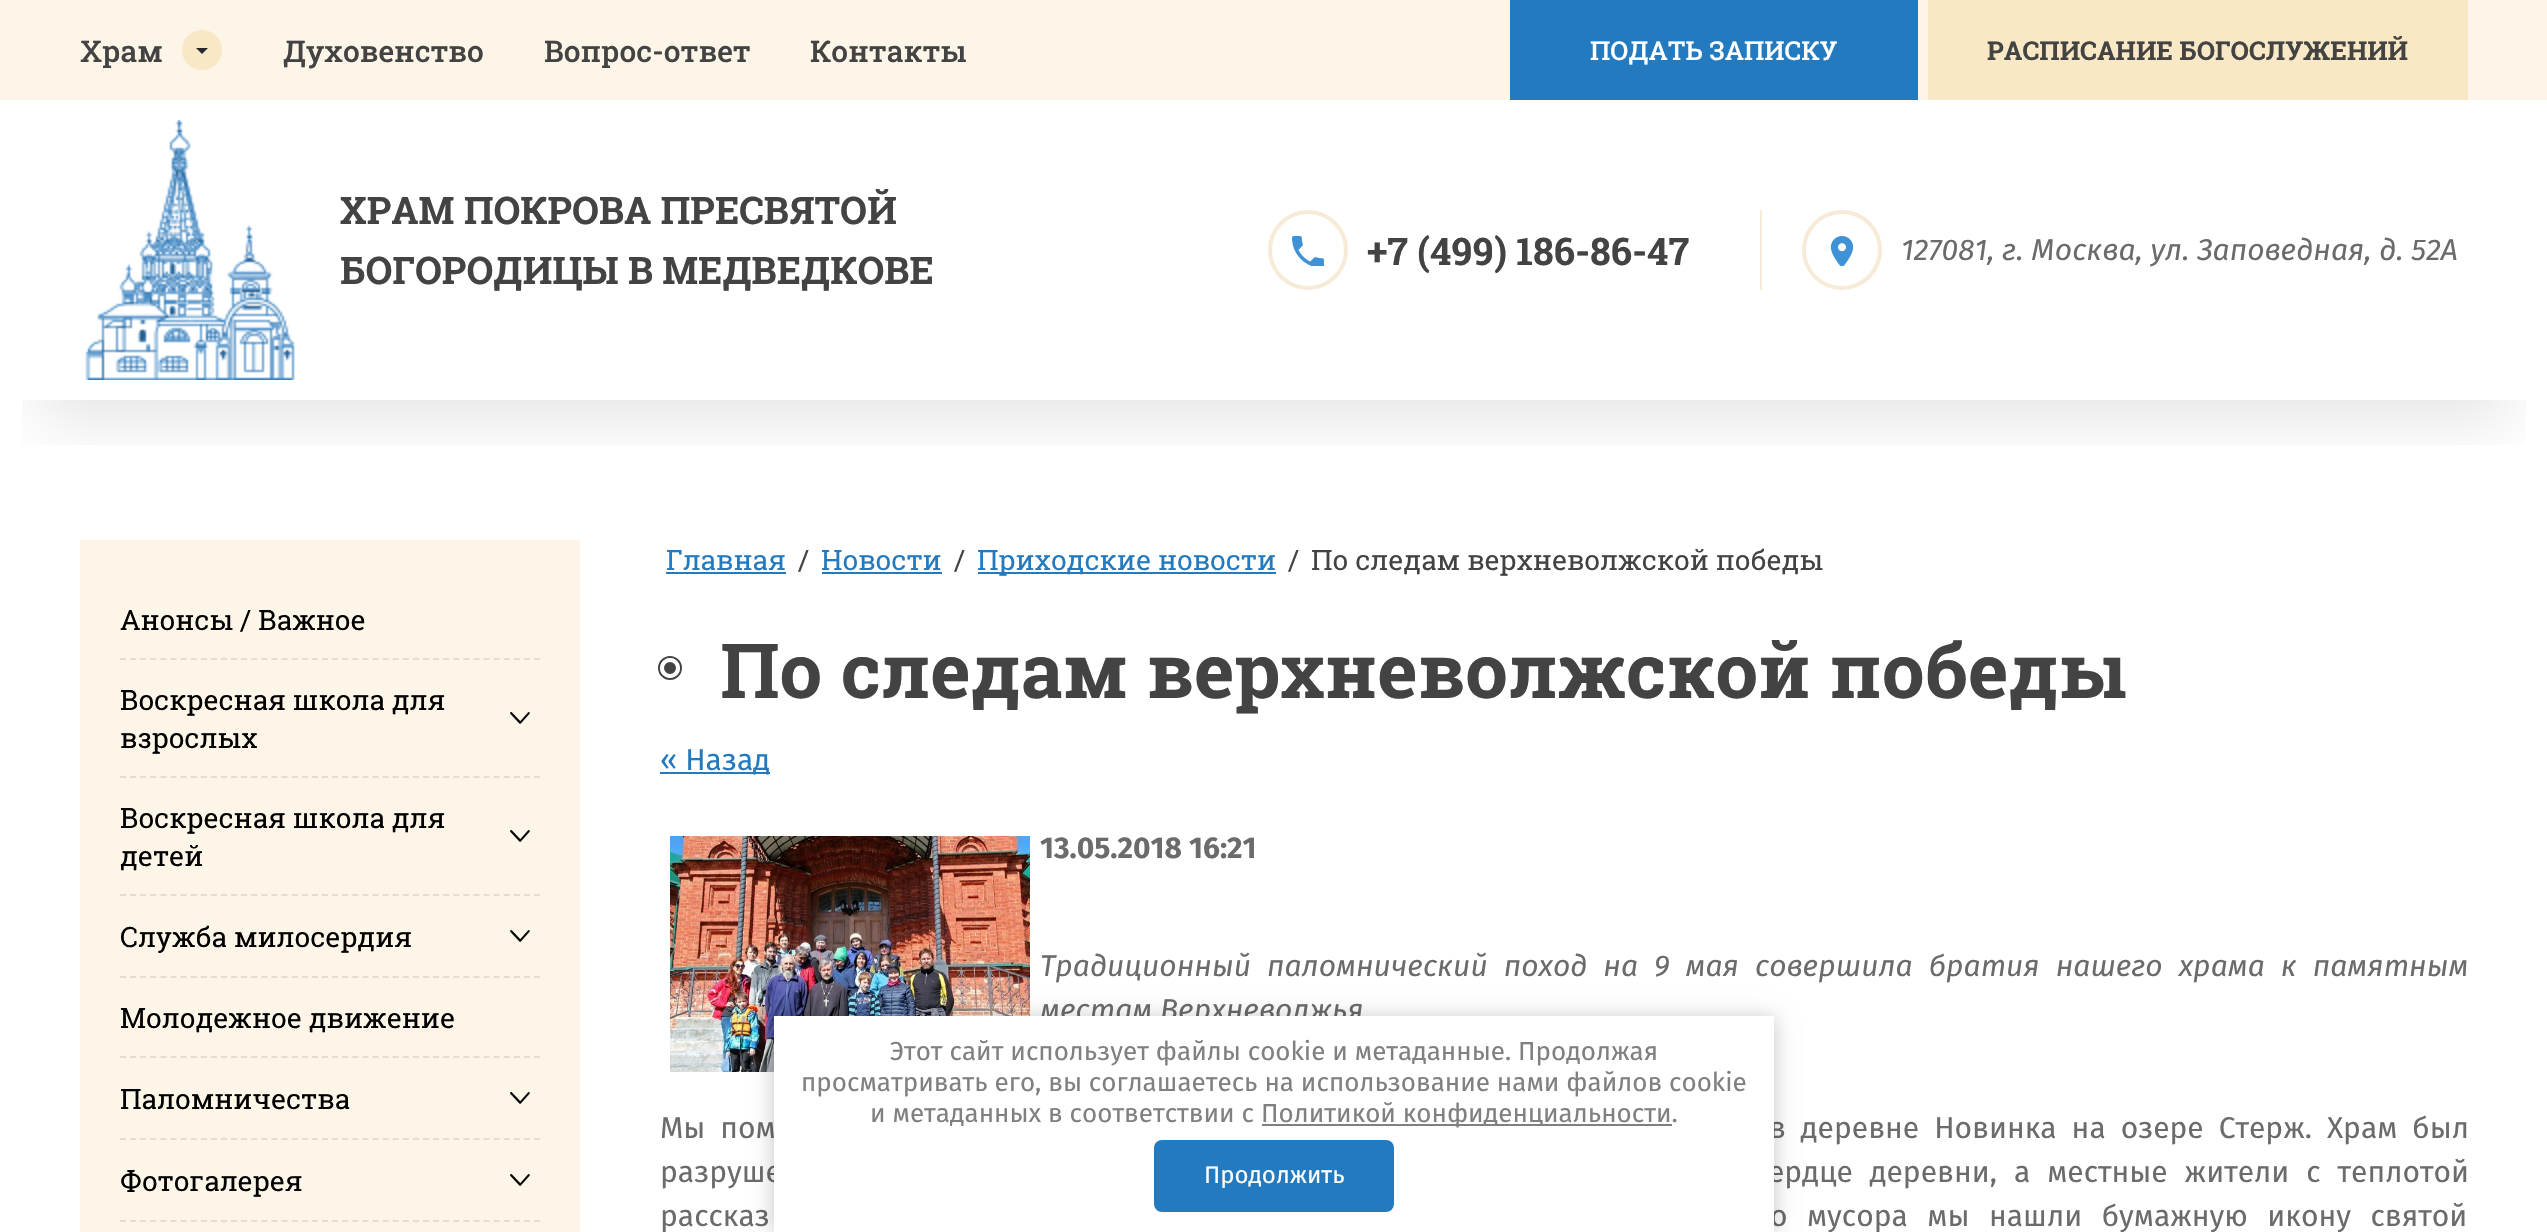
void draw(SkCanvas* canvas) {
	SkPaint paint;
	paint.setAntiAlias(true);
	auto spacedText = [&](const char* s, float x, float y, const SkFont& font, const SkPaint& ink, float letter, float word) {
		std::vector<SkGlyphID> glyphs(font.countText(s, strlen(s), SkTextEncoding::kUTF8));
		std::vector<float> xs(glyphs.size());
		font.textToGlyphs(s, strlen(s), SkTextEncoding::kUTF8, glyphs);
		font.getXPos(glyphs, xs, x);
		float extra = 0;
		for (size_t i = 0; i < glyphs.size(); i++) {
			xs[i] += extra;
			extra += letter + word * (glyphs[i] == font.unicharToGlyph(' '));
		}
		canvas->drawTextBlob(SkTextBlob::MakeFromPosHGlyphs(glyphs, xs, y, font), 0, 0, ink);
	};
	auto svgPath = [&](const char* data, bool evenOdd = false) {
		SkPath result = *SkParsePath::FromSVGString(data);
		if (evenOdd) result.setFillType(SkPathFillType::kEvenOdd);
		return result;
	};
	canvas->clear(0xffffffff);
	canvas->save();
	canvas->clipRect(SkRect::MakeXYWH(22, 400, 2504, 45));
	paint.setColor(0x1a000000);
	paint.setMaskFilter(SkMaskFilter::MakeBlur(kNormal_SkBlurStyle, 30));
	canvas->drawRect(SkRect::MakeXYWH(40, 100, 2468, 320), paint);
	paint.setMaskFilter(nullptr);
	canvas->restore();
	paint.setColor(0xfffdf6e8);
	canvas->drawRect(SkRect::MakeXYWH(0, 0, 2547, 100), paint);
	SkFont f1(fontMgr->matchFamilyStyle("Roboto Slab", SkFontStyle(500, SkFontStyle::kNormal_Width, SkFontStyle::kUpright_Slant)), 30);
	f1.setSubpixel(true);
	paint.setColor(0xff434343);
	canvas->drawString("Храм", 80, 62, f1, paint);
	paint.setColor(0xfff8e8c6);
	canvas->drawCircle(202, 50, 20, paint);
	paint.setColor(0xff282828);
	canvas->drawPath(svgPath("M208 48L202 54L196 48Z", true), paint);
	paint.setColor(0xff434343);
	canvas->drawString("Духовенство", 283, 62, f1, paint);
	canvas->drawString("Вопрос-ответ", 544, 62, f1, paint);
	canvas->drawString("Контакты", 810, 62, f1, paint);
	paint.setColor(0xff237abf);
	canvas->drawRect(SkRect::MakeXYWH(1510, 0, 408, 100), paint);
	SkFont f2(fontMgr->matchFamilyStyle("Roboto Slab", SkFontStyle(500, SkFontStyle::kNormal_Width, SkFontStyle::kUpright_Slant)), 26);
	f2.setSubpixel(true);
	paint.setColor(0xffffffff);
	canvas->drawString("ПОДАТЬ ЗАПИСКУ", 1590, 60, f2, paint);
	paint.setColor(0xfff8e8c6);
	canvas->drawRect(SkRect::MakeXYWH(1928, 0, 540, 100), paint);
	SkFont f3(fontMgr->matchFamilyStyle("Roboto Slab", SkFontStyle::Bold()), 26);
	f3.setSubpixel(true);
	paint.setColor(0xff434343);
	canvas->drawString("РАСПИСАНИЕ БОГОСЛУЖЕНИЙ", 1987, 60, f3, paint);
	canvas->drawImageRect(SkImages::DeferredFromEncodedData(SkData::MakeFromFileName("img1.png")), SkRect::MakeXYWH(85, 120, 210, 260), SkSamplingOptions());
	SkFont f4(fontMgr->matchFamilyStyle("Roboto Slab", SkFontStyle::Bold()), 38);
	f4.setSubpixel(true);
	canvas->drawString("ХРАМ ПОКРОВА ПРЕСВЯТОЙ", 340, 224, f4, paint);
	canvas->drawString("БОГОРОДИЦЫ В МЕДВЕДКОВЕ", 340, 284, f4, paint);
	paint.setColor(0xfff7ead7);
	canvas->drawRect(SkRect::MakeXYWH(1760, 210, 2, 80), paint);
	paint.setStroke(true);
	paint.setStrokeWidth(4);
	canvas->drawCircle(1308, 250, 38, paint);
	canvas->drawImageRect(SkImages::DeferredFromEncodedData(SkData::MakeFromFileName("img2.png")), SkRect::MakeXYWH(1292, 236, 32, 30), SkSamplingOptions());
	paint.setStroke(false);
	paint.setColor(0xff434343);
	canvas->drawString("+7 (499) 186-86-47", 1367, 265, f4, paint);
	paint.setStroke(true);
	paint.setColor(0xfff7ead7);
	canvas->drawCircle(1842, 250, 38, paint);
	canvas->drawImageRect(SkImages::DeferredFromEncodedData(SkData::MakeFromFileName("img3.png")), SkRect::MakeXYWH(1830, 236, 24, 30), SkSamplingOptions());
	SkFont f5(fontMgr->matchFamilyStyle("Fira Sans", SkFontStyle::Italic()), 30);
	f5.setSubpixel(true);
	paint.setStroke(false);
	paint.setColor(0xff6b6b6b);
	canvas->drawString("127081, г. Москва, ул. Заповедная, д. 52А", 1901, 260, f5, paint);
	paint.setColor(0xfffdf6e8);
	canvas->drawRect(SkRect::MakeXYWH(80, 540, 500, 692), paint);
	paint.setStroke(true);
	paint.setStrokeWidth(2);
	paint.setColor(0xffe4ddd1);
	paint.setPathEffect(SkDashPathEffect::Make({{6, 4.1f}}, 0));
	canvas->drawPath(svgPath("M120 659H540"), paint);
	paint.setPathEffect(nullptr);
	SkFont f6(fontMgr->matchFamilyStyle("Roboto Slab", SkFontStyle::Normal()), 28);
	f6.setSubpixel(true);
	paint.setStroke(false);
	paint.setColor(0xff000000);
	canvas->drawString("Анонсы / Важное", 120, 630, f6, paint);
	paint.setStroke(true);
	paint.setColor(0xffe4ddd1);
	paint.setPathEffect(SkDashPathEffect::Make({{6, 4.1f}}, 0));
	canvas->drawPath(svgPath("M120 777H540"), paint);
	paint.setPathEffect(nullptr);
	paint.setStroke(false);
	paint.setColor(0xff000000);
	canvas->drawString("Воскресная школа для", 120, 710, f6, paint);
	canvas->drawString("взрослых", 120, 748, f6, paint);
	canvas->drawImageRect(SkImages::DeferredFromEncodedData(SkData::MakeFromFileName("img4.png")), SkRect::MakeXYWH(510, 712, 20, 12), SkSamplingOptions());
	paint.setStroke(true);
	paint.setColor(0xffe4ddd1);
	paint.setPathEffect(SkDashPathEffect::Make({{6, 4.1f}}, 0));
	canvas->drawPath(svgPath("M120 895H540"), paint);
	paint.setPathEffect(nullptr);
	paint.setStroke(false);
	paint.setColor(0xff000000);
	canvas->drawString("Воскресная школа для", 120, 828, f6, paint);
	canvas->drawString("детей", 120, 866, f6, paint);
	canvas->drawImageRect(SkImages::DeferredFromEncodedData(SkData::MakeFromFileName("img4.png")), SkRect::MakeXYWH(510, 830, 20, 12), SkSamplingOptions());
	paint.setStroke(true);
	paint.setColor(0xffe4ddd1);
	paint.setPathEffect(SkDashPathEffect::Make({{6, 4.1f}}, 0));
	canvas->drawPath(svgPath("M120 977H540"), paint);
	paint.setPathEffect(nullptr);
	paint.setStroke(false);
	paint.setColor(0xff000000);
	canvas->drawString("Служба милосердия", 120, 947, f6, paint);
	canvas->drawImageRect(SkImages::DeferredFromEncodedData(SkData::MakeFromFileName("img4.png")), SkRect::MakeXYWH(510, 930, 20, 12), SkSamplingOptions());
	paint.setStroke(true);
	paint.setColor(0xffe4ddd1);
	paint.setPathEffect(SkDashPathEffect::Make({{6, 4.1f}}, 0));
	canvas->drawPath(svgPath("M120 1057H540"), paint);
	paint.setPathEffect(nullptr);
	paint.setStroke(false);
	paint.setColor(0xff000000);
	canvas->drawString("Молодежное движение", 120, 1028, f6, paint);
	paint.setStroke(true);
	paint.setColor(0xffe4ddd1);
	paint.setPathEffect(SkDashPathEffect::Make({{6, 4.1f}}, 0));
	canvas->drawPath(svgPath("M120 1139H540"), paint);
	paint.setPathEffect(nullptr);
	paint.setStroke(false);
	paint.setColor(0xff000000);
	canvas->drawString("Паломничества", 120, 1109, f6, paint);
	canvas->drawImageRect(SkImages::DeferredFromEncodedData(SkData::MakeFromFileName("img4.png")), SkRect::MakeXYWH(510, 1092, 20, 12), SkSamplingOptions());
	paint.setStroke(true);
	paint.setColor(0xffe4ddd1);
	paint.setPathEffect(SkDashPathEffect::Make({{6, 4.1f}}, 0));
	canvas->drawPath(svgPath("M120 1221H540"), paint);
	paint.setPathEffect(nullptr);
	paint.setStroke(false);
	paint.setColor(0xff000000);
	canvas->drawString("Фотогалерея", 120, 1191, f6, paint);
	canvas->drawImageRect(SkImages::DeferredFromEncodedData(SkData::MakeFromFileName("img4.png")), SkRect::MakeXYWH(510, 1174, 20, 12), SkSamplingOptions());
	paint.setColor(0xff237abf);
	canvas->drawString("Главная", 666, 570, f6, paint);
	canvas->drawRect(SkRect::MakeXYWH(666, 572, 120, 2), paint);
	paint.setColor(0xff434343);
	canvas->drawString("/", 798, 570, f6, paint);
	paint.setColor(0xff237abf);
	canvas->drawString("Новости", 821, 570, f6, paint);
	canvas->drawRect(SkRect::MakeXYWH(822, 572, 120, 2), paint);
	paint.setColor(0xff434343);
	canvas->drawString("/", 954, 570, f6, paint);
	paint.setColor(0xff237abf);
	canvas->drawRect(SkRect::MakeXYWH(978, 572, 298, 2), paint);
	canvas->drawString("Приходские новости", 977, 570, f6, paint);
	paint.setColor(0xff434343);
	canvas->drawString("/", 1288, 570, f6, paint);
	canvas->drawString("По следам верхневолжской победы", 1311, 570, f6, paint);
	paint.setStroke(true);
	canvas->drawCircle(670, 668, 11, paint);
	paint.setStroke(false);
	canvas->drawCircle(670, 668, 8, paint);
	paint.setStroke(true);
	paint.setStrokeWidth(4);
	paint.setColor(0xffffffff);
	canvas->drawCircle(670, 668, 8, paint);
	SkFont f7(fontMgr->matchFamilyStyle("Roboto Slab", SkFontStyle::Bold()), 76);
	f7.setSubpixel(true);
	paint.setStroke(false);
	paint.setColor(0xff434343);
	canvas->drawString("По следам верхневолжской победы", 720, 698, f7, paint);
	paint.setColor(0xff237abf);
	canvas->drawRect(SkRect::MakeXYWH(660, 772, 110, 2), paint);
	SkFont f8(fontMgr->matchFamilyStyle("Fira Sans", SkFontStyle::Normal()), 30);
	f8.setSubpixel(true);
	canvas->drawString("« Назад", 660, 770, f8, paint);
	canvas->drawImageRect(SkImages::DeferredFromEncodedData(SkData::MakeFromFileName("img5.png")), SkRect::MakeXYWH(670, 836, 360, 236), SkSamplingOptions());
	SkFont f9(fontMgr->matchFamilyStyle("Fira Sans", SkFontStyle::Bold()), 30);
	f9.setSubpixel(true);
	paint.setColor(0xff6b6b6b);
	canvas->drawString("13.05.2018 16:21", 1040, 858, f9, paint);
	spacedText("Традиционный паломнический поход на 9 мая совершила братия нашего храма к памятным", 1040, 976, f5, paint, 0, 8.25);
	canvas->drawString("местам Верхневолжья", 1040, 1020, f5, paint);
	spacedText("Мы пом", 660, 1138, f8, paint, 0, 7);
	spacedText("в деревне Новинка на озере Стерж. Храм был", 1769, 1138, f8, paint, 0, 7);
	spacedText("разруше", 660, 1182, f8, paint, 0, 9);
	spacedText("ердце деревни, а местные жители с теплотой", 1768, 1182, f8, paint, 0, 9);
	spacedText("рассказ", 660, 1226, f8, paint, 0, 11.5);
	spacedText("о мусора мы нашли бумажную икону святой", 1770, 1226, f8, paint, 0, 11.5);
	paint.setColor(0x3b000000);
	paint.setMaskFilter(SkMaskFilter::MakeBlur(kNormal_SkBlurStyle, 10));
	canvas->drawRect(SkRect::MakeXYWH(774, 1018, 1000, 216), paint);
	paint.setMaskFilter(nullptr);
	paint.setColor(0xffffffff);
	canvas->drawRect(SkRect::MakeXYWH(774, 1016, 1000, 216), paint);
	SkFont f10(fontMgr->matchFamilyStyle("Fira Sans", SkFontStyle::Normal()), 26);
	f10.setSubpixel(true);
	paint.setColor(0xff808080);
	canvas->drawString("Этот сайт использует файлы cookie и метаданные. Продолжая", 890, 1060, f10, paint);
	canvas->drawString("просматривать его, вы соглашаетесь на использование нами файлов cookie", 801, 1091, f10, paint);
	canvas->drawString("и метаданных в соответствии с", 870, 1122, f10, paint);
	canvas->drawRect(SkRect::MakeXYWH(1262, 1124, 410, 2), paint);
	canvas->drawString("Политикой конфиденциальности.", 1261, 1122, f10, paint);
	paint.setColor(0xff237abf);
	canvas->drawRoundRect(SkRect::MakeXYWH(1154, 1140, 240, 72), 8, 8, paint);
	SkFont f11(fontMgr->matchFamilyStyle("Fira Sans", SkFontStyle::Normal()), 24);
	f11.setSubpixel(true);
	paint.setColor(0xffffffff);
	canvas->drawString("Продолжить", 1204, 1183, f11, paint);
}
